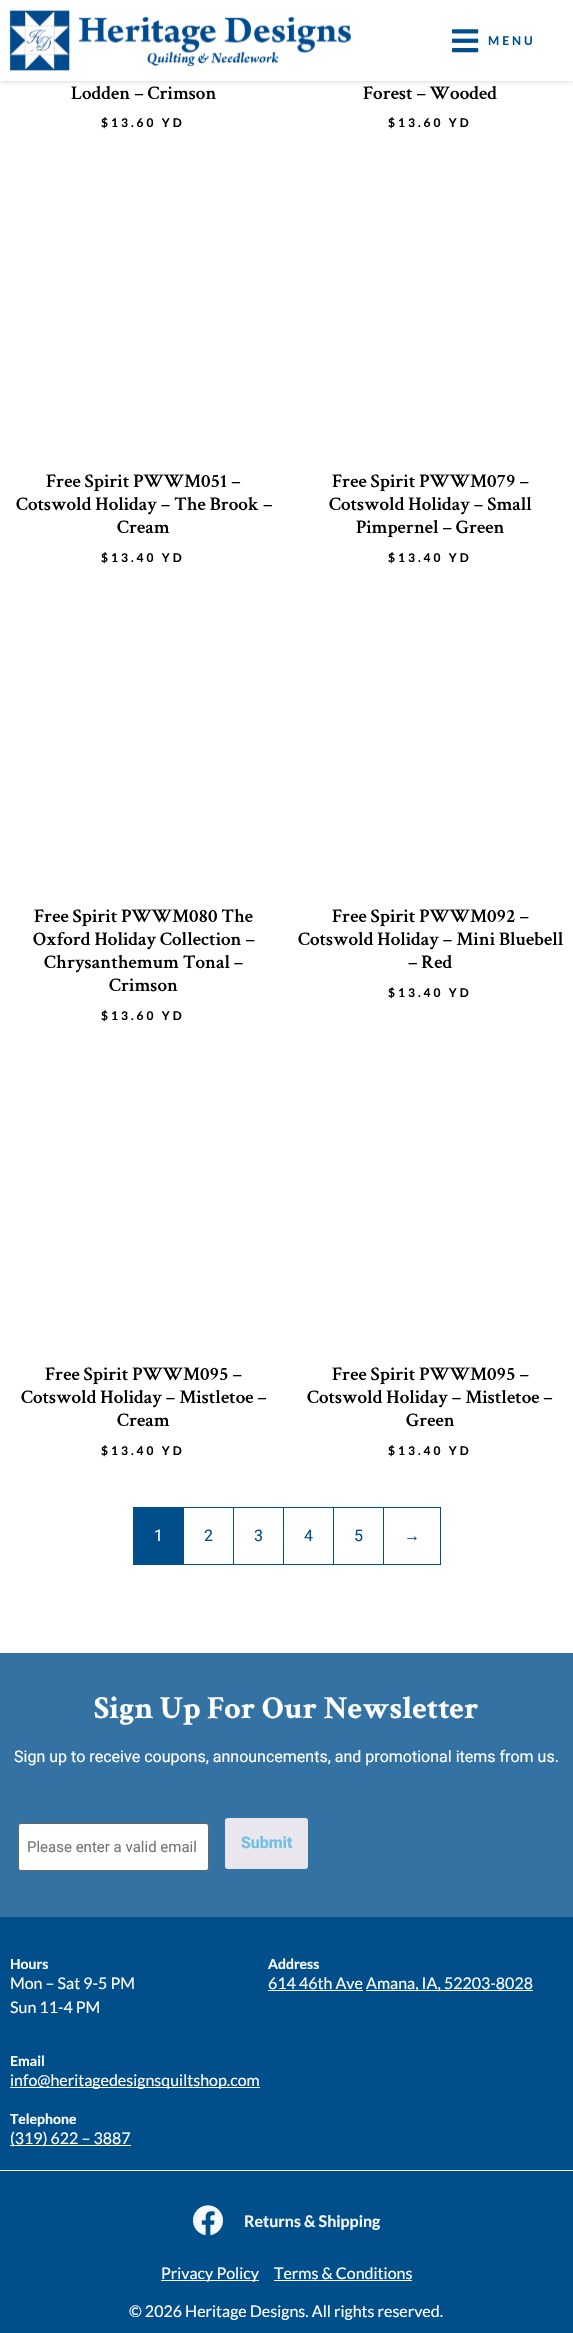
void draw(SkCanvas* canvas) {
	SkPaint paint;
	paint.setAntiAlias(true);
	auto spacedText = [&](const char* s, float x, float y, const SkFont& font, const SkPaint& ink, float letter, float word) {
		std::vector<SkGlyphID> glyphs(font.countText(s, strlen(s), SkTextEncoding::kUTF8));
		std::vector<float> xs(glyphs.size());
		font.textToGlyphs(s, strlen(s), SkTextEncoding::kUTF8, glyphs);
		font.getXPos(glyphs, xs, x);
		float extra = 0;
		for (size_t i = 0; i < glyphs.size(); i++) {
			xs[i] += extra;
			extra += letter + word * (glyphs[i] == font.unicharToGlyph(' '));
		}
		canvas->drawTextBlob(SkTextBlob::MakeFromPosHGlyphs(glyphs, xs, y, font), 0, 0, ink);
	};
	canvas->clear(0xffffffff);
	paint.setColor(0x33000000);
	paint.setMaskFilter(SkMaskFilter::MakeBlur(kNormal_SkBlurStyle, 2.5));
	canvas->drawRect(SkRect::MakeXYWH(0, 0, 573, 81), paint);
	paint.setMaskFilter(nullptr);
	paint.setColor(0xffffffff);
	canvas->drawRect(SkRect::MakeXYWH(0, 0, 573, 81), paint);
	canvas->drawImageRect(SkImages::DeferredFromEncodedData(SkData::MakeFromFileName("img1.png")), SkRect::MakeXYWH(9, 10, 343, 61), SkSamplingOptions());
	canvas->drawImageRect(SkImages::DeferredFromEncodedData(SkData::MakeFromFileName("img2.png")), SkRect::MakeXYWH(452, 29, 27, 24), SkSamplingOptions());
	SkFont f1(fontMgr->matchFamilyStyle("Lato", SkFontStyle::Bold()), 12);
	f1.setSubpixel(true);
	paint.setColor(0xff004e8a);
	spacedText("MENU", 488, 45, f1, paint, 3, 0);
	SkFont f2(fontMgr->matchFamilyStyle("Crimson Text", SkFontStyle(600, SkFontStyle::kNormal_Width, SkFontStyle::kUpright_Slant)), 19.25);
	f2.setSubpixel(true);
	paint.setColor(0xff000000);
	canvas->drawString("Lodden – Crimson", 71, 99, f2, paint);
	spacedText("$13.60 YD", 101, 127, f1, paint, 3, 0);
	canvas->drawString("Forest – Wooded", 363, 99, f2, paint);
	spacedText("$13.60 YD", 388, 127, f1, paint, 3, 0);
	canvas->drawString("Free Spirit PWWM051 –", 46, 487, f2, paint);
	canvas->drawString("Cotswold Holiday – The Brook –", 16, 510, f2, paint);
	canvas->drawString("Cream", 117, 533, f2, paint);
	spacedText("$13.40 YD", 101, 562, f1, paint, 3, 0);
	canvas->drawString("Free Spirit PWWM079 –", 332, 487, f2, paint);
	canvas->drawString("Cotswold Holiday – Small", 329, 510, f2, paint);
	canvas->drawString("Pimpernel – Green", 356, 533, f2, paint);
	spacedText("$13.40 YD", 388, 562, f1, paint, 3, 0);
	canvas->drawString("Free Spirit PWWM080 The", 34, 922, f2, paint);
	canvas->drawString("Oxford Holiday Collection –", 33, 945, f2, paint);
	canvas->drawString("Chrysanthemum Tonal –", 44, 968, f2, paint);
	canvas->drawString("Crimson", 109, 991, f2, paint);
	spacedText("$13.60 YD", 101, 1020, f1, paint, 3, 0);
	canvas->drawString("Free Spirit PWWM092 –", 332, 922, f2, paint);
	canvas->drawString("Cotswold Holiday – Mini Bluebell", 298, 945, f2, paint);
	canvas->drawString("– Red", 408, 968, f2, paint);
	spacedText("$13.40 YD", 388, 997, f1, paint, 3, 0);
	canvas->drawString("Free Spirit PWWM095 –", 45, 1380, f2, paint);
	canvas->drawString("Cotswold Holiday – Mistletoe –", 21, 1403, f2, paint);
	canvas->drawString("Cream", 117, 1426, f2, paint);
	spacedText("$13.40 YD", 101, 1455, f1, paint, 3, 0);
	canvas->drawString("Free Spirit PWWM095 –", 332, 1380, f2, paint);
	canvas->drawString("Cotswold Holiday – Mistletoe –", 307, 1403, f2, paint);
	canvas->drawString("Green", 406, 1426, f2, paint);
	spacedText("$13.40 YD", 388, 1455, f1, paint, 3, 0);
	paint.setColor(0xff004e8a);
	canvas->drawRect(SkRect::MakeXYWH(133, 1507, 308, 1), paint);
	canvas->drawRect(SkRect::MakeXYWH(133, 1564, 308, 1), paint);
	canvas->drawRect(SkRect::MakeXYWH(133, 1507, 1, 58), paint);
	canvas->drawRect(SkRect::MakeXYWH(134, 1508, 50, 56), paint);
	SkFont f3(fontMgr->matchFamilyStyle("Roboto", SkFontStyle::Normal()), 16);
	f3.setSubpixel(true);
	paint.setColor(0xffffffff);
	canvas->drawString("1", 154, 1541, f3, paint);
	paint.setColor(0xff004e8a);
	canvas->drawRect(SkRect::MakeXYWH(233, 1508, 1, 56), paint);
	canvas->drawString("2", 204, 1541, f3, paint);
	canvas->drawRect(SkRect::MakeXYWH(283, 1508, 1, 56), paint);
	canvas->drawString("3", 254, 1541, f3, paint);
	canvas->drawRect(SkRect::MakeXYWH(333, 1508, 1, 56), paint);
	canvas->drawString("4", 304, 1541, f3, paint);
	canvas->drawRect(SkRect::MakeXYWH(383, 1508, 1, 56), paint);
	canvas->drawString("5", 354, 1541, f3, paint);
	canvas->drawRect(SkRect::MakeXYWH(440, 1508, 1, 56), paint);
	SkFont f4(fontMgr->matchFamilyStyle("Liberation Sans", SkFontStyle::Normal()), 16);
	f4.setSubpixel(true);
	canvas->drawString("→", 404, 1541, f4, paint);
	paint.setColor(0xff3372a2);
	canvas->drawRect(SkRect::MakeXYWH(0, 1653, 573, 264), paint);
	SkFont f5(fontMgr->matchFamilyStyle("Crimson Text", SkFontStyle::Bold()), 32);
	f5.setSubpixel(true);
	paint.setColor(0xffffffff);
	canvas->drawString("Sign Up For Our Newsletter", 94, 1718, f5, paint);
	canvas->drawString("Sign up to receive coupons, announcements, and promotional items from us.", 14, 1762, f3, paint);
	canvas->drawRoundRect(SkRect::MakeXYWH(18.5, 1823.5, 190, 47), 2.5, 2.5, paint);
	paint.setStroke(true);
	paint.setStrokeWidth(1);
	paint.setColor(0xff666666);
	canvas->drawRoundRect(SkRect::MakeXYWH(18.5, 1823.5, 190, 47), 2.5, 2.5, paint);
	SkFont f6(fontMgr->matchFamilyStyle("Roboto", SkFontStyle::Normal()), 15);
	f6.setSubpixel(true);
	paint.setStroke(false);
	paint.setColor(0xff757575);
	canvas->drawString("Please enter a valid email", 27, 1852, f6, paint);
	paint.setColor(0xffe9e6ed);
	canvas->drawRoundRect(SkRect::MakeXYWH(225, 1818, 83, 51), 3, 3, paint);
	SkFont f7(fontMgr->matchFamilyStyle("Roboto", SkFontStyle::Bold()), 16);
	f7.setSubpixel(true);
	paint.setColor(0xff6ec1e4);
	canvas->drawString("Submit", 241, 1848, f7, paint);
	paint.setColor(0xff004e8a);
	canvas->drawRect(SkRect::MakeXYWH(0, 1917, 573, 253), paint);
	paint.setColor(0xfff5faff);
	canvas->drawRect(SkRect::MakeXYWH(0, 2170, 573, 1), paint);
	SkFont f8(fontMgr->matchFamilyStyle("Lato", SkFontStyle::Bold()), 14);
	f8.setSubpixel(true);
	paint.setColor(0xffffffff);
	canvas->drawString("Hours", 10, 1969, f8, paint);
	SkFont f9(fontMgr->matchFamilyStyle("Lato", SkFontStyle::Normal()), 16);
	f9.setSubpixel(true);
	canvas->drawString("Mon – Sat 9-5 PM", 10, 1989, f9, paint);
	canvas->drawString("Sun 11-4 PM", 10, 2013, f9, paint);
	canvas->drawString("Address", 268, 1969, f8, paint);
	canvas->drawString("614 46th Ave", 268, 1989, f9, paint);
	canvas->drawRect(SkRect::MakeXYWH(268, 1990, 95, 1), paint);
	canvas->drawRect(SkRect::MakeXYWH(366, 1990, 167, 1), paint);
	canvas->drawString("Amana, IA, 52203-8028", 366, 1989, f9, paint);
	canvas->drawString("Email", 10, 2066, f8, paint);
	canvas->drawRect(SkRect::MakeXYWH(10, 2087, 250, 1), paint);
	canvas->drawString("info@heritagedesignsquiltshop.com", 10, 2086, f9, paint);
	canvas->drawString("Telephone", 10, 2124, f8, paint);
	canvas->drawRect(SkRect::MakeXYWH(10, 2145, 121, 1), paint);
	canvas->drawString("(319) 622 – 3887", 10, 2144, f9, paint);
	paint.setColor(0xff004e8a);
	canvas->drawRect(SkRect::MakeXYWH(0, 2171, 573, 162), paint);
	canvas->drawImageRect(SkImages::DeferredFromEncodedData(SkData::MakeFromFileName("img3.png")), SkRect::MakeXYWH(193, 2205, 30, 31), SkSamplingOptions());
	SkFont f10(fontMgr->matchFamilyStyle("Lato", SkFontStyle::Bold()), 16);
	f10.setSubpixel(true);
	paint.setColor(0xfff5faff);
	canvas->drawString("Returns & Shipping", 244, 2227, f10, paint);
	paint.setColor(0xffffffff);
	canvas->drawRect(SkRect::MakeXYWH(161, 2280, 98, 1), paint);
	canvas->drawString("Privacy Policy", 161, 2279, f9, paint);
	canvas->drawString("Terms & Conditions", 274, 2279, f9, paint);
	canvas->drawRect(SkRect::MakeXYWH(274, 2280, 138, 1), paint);
	canvas->drawString("© 2026 Heritage Designs. All rights reserved.", 129, 2317, f9, paint);
}
